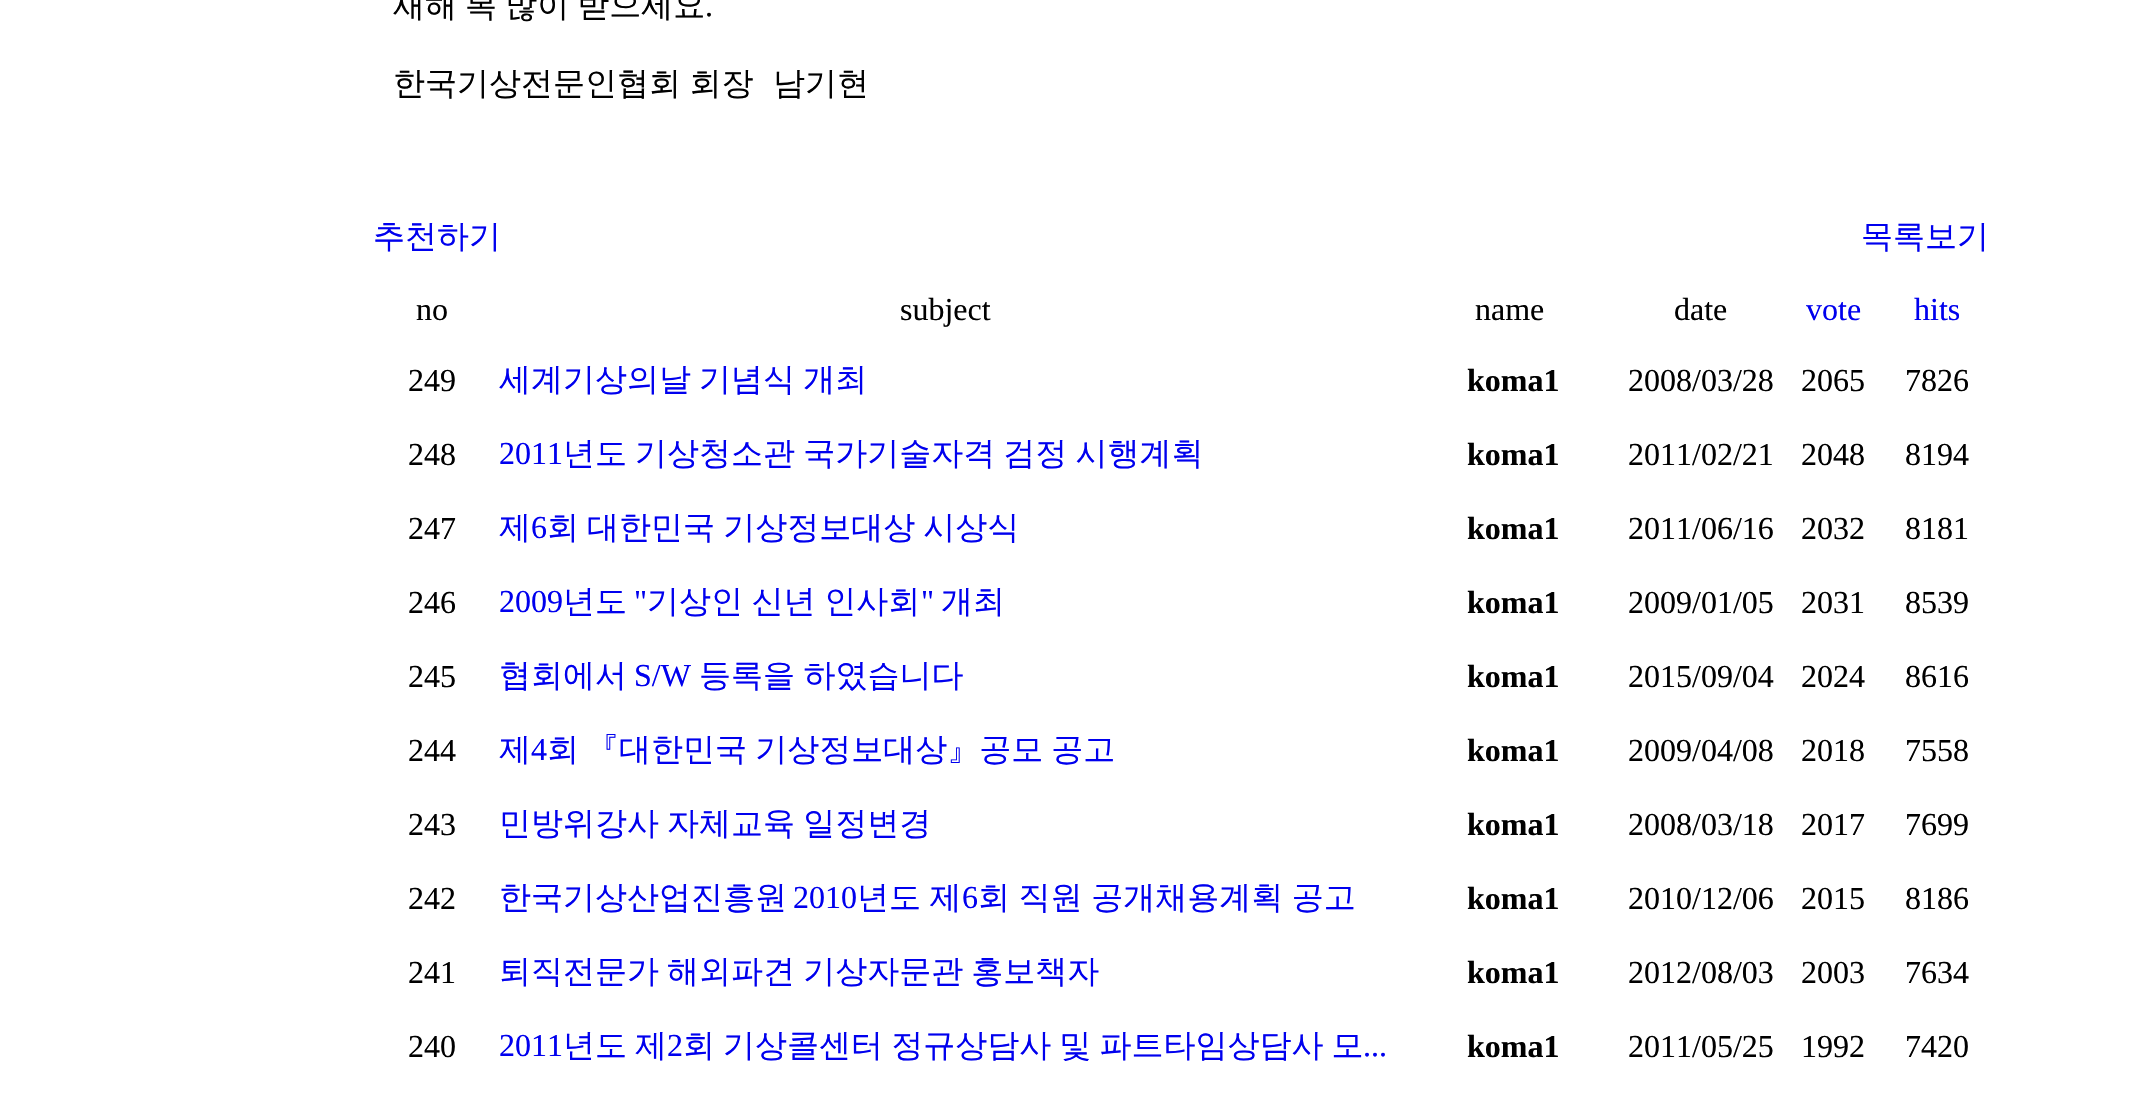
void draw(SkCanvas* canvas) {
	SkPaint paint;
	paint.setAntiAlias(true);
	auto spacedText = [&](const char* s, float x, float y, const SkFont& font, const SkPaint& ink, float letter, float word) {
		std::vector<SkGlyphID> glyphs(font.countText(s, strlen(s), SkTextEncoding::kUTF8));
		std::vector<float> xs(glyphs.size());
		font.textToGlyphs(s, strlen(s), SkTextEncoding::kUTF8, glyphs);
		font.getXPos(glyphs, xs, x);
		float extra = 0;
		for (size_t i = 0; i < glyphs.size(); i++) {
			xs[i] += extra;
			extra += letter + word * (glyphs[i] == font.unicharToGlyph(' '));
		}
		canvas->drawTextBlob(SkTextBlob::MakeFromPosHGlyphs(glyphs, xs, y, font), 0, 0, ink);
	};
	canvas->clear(0xffffffff);
	SkFont f1(fontMgr->matchFamilyStyle("WenQuanYi Zen Hei", SkFontStyle(500, SkFontStyle::kNormal_Width, SkFontStyle::kUpright_Slant)), 32);
	f1.setSubpixel(true);
	paint.setColor(0xff000000);
	spacedText("새해 복 많이 받으세요", 393, 16, f1, paint, 0, -1.5);
	SkFont f2(fontMgr->matchFamilyStyle("Liberation Serif", SkFontStyle::Normal()), 32);
	f2.setSubpixel(true);
	canvas->drawString(".", 705, 16, f2, paint);
	spacedText("한국기상전문인협회 회장", 393, 94, f1, paint, 0, -1);
	canvas->drawString("남기현", 773, 94, f1, paint);
	paint.setColor(0xff0000ee);
	canvas->drawString("추천하기", 373, 247, f1, paint);
	canvas->drawString("목록보기", 1861, 247, f1, paint);
	paint.setColor(0xff000000);
	canvas->drawString("no", 416, 320, f2, paint);
	canvas->drawString("subject", 900, 320, f2, paint);
	canvas->drawString("name", 1475, 320, f2, paint);
	canvas->drawString("date", 1674, 320, f2, paint);
	paint.setColor(0xff0000ee);
	canvas->drawString("vote", 1806, 320, f2, paint);
	canvas->drawString("hits", 1914, 320, f2, paint);
	paint.setColor(0xff000000);
	canvas->drawString("249", 408, 391, f2, paint);
	paint.setColor(0xff0000ee);
	spacedText("세계기상의날 기념식 개최", 499, 390, f1, paint, 0, -1.5);
	SkFont f3(fontMgr->matchFamilyStyle("Liberation Serif", SkFontStyle::Bold()), 32);
	f3.setSubpixel(true);
	paint.setColor(0xff000000);
	canvas->drawString("koma1", 1467, 391, f3, paint);
	canvas->drawString("2008/03/28", 1628, 391, f2, paint);
	canvas->drawString("2065", 1801, 391, f2, paint);
	canvas->drawString("7826", 1905, 391, f2, paint);
	canvas->drawString("248", 408, 465, f2, paint);
	paint.setColor(0xff0000ee);
	canvas->drawString("2011", 499, 464, f2, paint);
	spacedText("년도 기상청소관 국가기술자격 검정 시행계획", 563, 464, f1, paint, 0, -1.5);
	paint.setColor(0xff000000);
	canvas->drawString("koma1", 1467, 465, f3, paint);
	canvas->drawString("2011/02/21", 1628, 465, f2, paint);
	canvas->drawString("2048", 1801, 465, f2, paint);
	canvas->drawString("8194", 1905, 465, f2, paint);
	canvas->drawString("247", 408, 539, f2, paint);
	paint.setColor(0xff0000ee);
	canvas->drawString("제", 499, 538, f1, paint);
	canvas->drawString("6", 531, 538, f2, paint);
	spacedText("회 대한민국 기상정보대상 시상식", 547, 538, f1, paint, 0, -1.5);
	paint.setColor(0xff000000);
	canvas->drawString("koma1", 1467, 539, f3, paint);
	canvas->drawString("2011/06/16", 1628, 539, f2, paint);
	canvas->drawString("2032", 1801, 539, f2, paint);
	canvas->drawString("8181", 1905, 539, f2, paint);
	canvas->drawString("246", 408, 613, f2, paint);
	paint.setColor(0xff0000ee);
	canvas->drawString("2009", 499, 612, f2, paint);
	canvas->drawString("년도", 563, 612, f1, paint);
	canvas->drawString("\"", 634, 612, f2, paint);
	spacedText("기상인 신년 인사회", 647, 612, f1, paint, 0, -1);
	canvas->drawString("\"", 921, 612, f2, paint);
	canvas->drawString("개최", 941, 612, f1, paint);
	paint.setColor(0xff000000);
	canvas->drawString("koma1", 1467, 613, f3, paint);
	canvas->drawString("2009/01/05", 1628, 613, f2, paint);
	canvas->drawString("2031", 1801, 613, f2, paint);
	canvas->drawString("8539", 1905, 613, f2, paint);
	canvas->drawString("245", 408, 687, f2, paint);
	paint.setColor(0xff0000ee);
	canvas->drawString("협회에서", 499, 686, f1, paint);
	canvas->drawString("S/W", 634, 686, f2, paint);
	spacedText("등록을 하였습니다", 699, 686, f1, paint, 0, -1);
	paint.setColor(0xff000000);
	canvas->drawString("koma1", 1467, 687, f3, paint);
	canvas->drawString("2015/09/04", 1628, 687, f2, paint);
	canvas->drawString("2024", 1801, 687, f2, paint);
	canvas->drawString("8616", 1905, 687, f2, paint);
	canvas->drawString("244", 408, 761, f2, paint);
	paint.setColor(0xff0000ee);
	canvas->drawString("제", 499, 760, f1, paint);
	canvas->drawString("4", 531, 760, f2, paint);
	spacedText("회 『대한민국 기상정보대상』공모 공고", 547, 760, f1, paint, 0, -1.5);
	paint.setColor(0xff000000);
	canvas->drawString("koma1", 1467, 761, f3, paint);
	canvas->drawString("2009/04/08", 1628, 761, f2, paint);
	canvas->drawString("2018", 1801, 761, f2, paint);
	canvas->drawString("7558", 1905, 761, f2, paint);
	canvas->drawString("243", 408, 835, f2, paint);
	paint.setColor(0xff0000ee);
	spacedText("민방위강사 자체교육 일정변경", 499, 834, f1, paint, 0, -1.5);
	paint.setColor(0xff000000);
	canvas->drawString("koma1", 1467, 835, f3, paint);
	canvas->drawString("2008/03/18", 1628, 835, f2, paint);
	canvas->drawString("2017", 1801, 835, f2, paint);
	canvas->drawString("7699", 1905, 835, f2, paint);
	canvas->drawString("242", 408, 909, f2, paint);
	paint.setColor(0xff0000ee);
	canvas->drawString("한국기상산업진흥원", 499, 908, f1, paint);
	canvas->drawString("2010", 793, 908, f2, paint);
	spacedText("년도 제", 857, 908, f1, paint, 0, -1);
	canvas->drawString("6", 962, 908, f2, paint);
	spacedText("회 직원 공개채용계획 공고", 978, 908, f1, paint, 0, -1);
	paint.setColor(0xff000000);
	canvas->drawString("koma1", 1467, 909, f3, paint);
	canvas->drawString("2010/12/06", 1628, 909, f2, paint);
	canvas->drawString("2015", 1801, 909, f2, paint);
	canvas->drawString("8186", 1905, 909, f2, paint);
	canvas->drawString("241", 408, 983, f2, paint);
	paint.setColor(0xff0000ee);
	spacedText("퇴직전문가 해외파견 기상자문관 홍보책자", 499, 982, f1, paint, 0, -1.5);
	paint.setColor(0xff000000);
	canvas->drawString("koma1", 1467, 983, f3, paint);
	canvas->drawString("2012/08/03", 1628, 983, f2, paint);
	canvas->drawString("2003", 1801, 983, f2, paint);
	canvas->drawString("7634", 1905, 983, f2, paint);
	canvas->drawString("240", 408, 1057, f2, paint);
	paint.setColor(0xff0000ee);
	canvas->drawString("2011", 499, 1056, f2, paint);
	spacedText("년도 제", 563, 1056, f1, paint, 0, -1.5);
	canvas->drawString("2", 667, 1056, f2, paint);
	spacedText("회 기상콜센터 정규상담사 및 파트타임상담사 모", 683, 1056, f1, paint, 0, -1.5);
	canvas->drawString("...", 1363, 1056, f2, paint);
	paint.setColor(0xff000000);
	canvas->drawString("koma1", 1467, 1057, f3, paint);
	canvas->drawString("2011/05/25", 1628, 1057, f2, paint);
	canvas->drawString("1992", 1801, 1057, f2, paint);
	canvas->drawString("7420", 1905, 1057, f2, paint);
}
